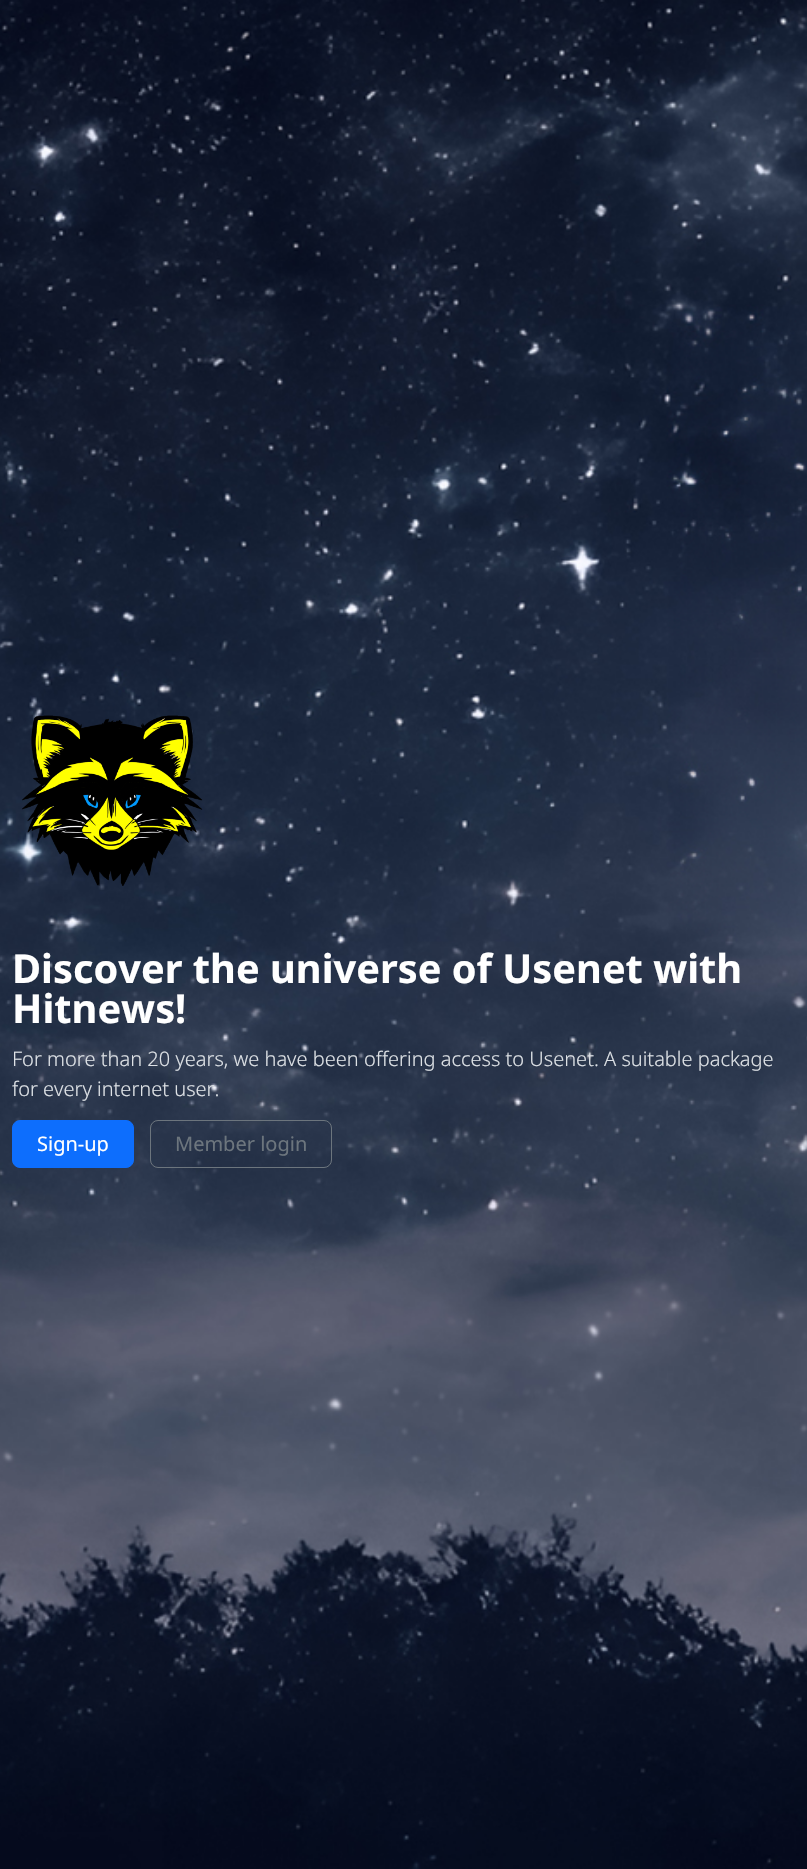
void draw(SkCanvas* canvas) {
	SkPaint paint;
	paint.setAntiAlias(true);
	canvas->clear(0xffffffff);
	canvas->drawImageRect(SkImages::DeferredFromEncodedData(SkData::MakeFromFileName("img1.png")), SkRect::MakeXYWH(0, 0, 807, 1869), SkSamplingOptions());
	canvas->drawImageRect(SkImages::DeferredFromEncodedData(SkData::MakeFromFileName("img2.png")), SkRect::MakeXYWH(22, 715, 181, 171), SkSamplingOptions());
	SkFont f1(fontMgr->matchFamilyStyle("Noto Sans", SkFontStyle::Bold()), 39.75);
	f1.setSubpixel(true);
	paint.setColor(0xffffffff);
	canvas->drawString("Discover the universe of Usenet with", 12, 983, f1, paint);
	canvas->drawString("Hitnews!", 12, 1023, f1, paint);
	SkFont f2(fontMgr->matchFamilyStyle("Noto Sans", SkFontStyle(300, SkFontStyle::kNormal_Width, SkFontStyle::kUpright_Slant)), 20);
	f2.setSubpixel(true);
	paint.setColor(0xffdee2e6);
	canvas->drawString("For more than 20 years, we have been offering access to Usenet. A suitable package", 12, 1066, f2, paint);
	canvas->drawString("for every internet user.", 12, 1096, f2, paint);
	paint.setColor(0xff0d6efd);
	canvas->drawRoundRect(SkRect::MakeXYWH(12.5, 1120.5, 121, 47), 7.5, 7.5, paint);
	paint.setStroke(true);
	paint.setStrokeWidth(1);
	canvas->drawRoundRect(SkRect::MakeXYWH(12.5, 1120.5, 121, 47), 7.5, 7.5, paint);
	SkFont f3(fontMgr->matchFamilyStyle("Noto Sans", SkFontStyle::Normal()), 20);
	f3.setSubpixel(true);
	paint.setStroke(false);
	paint.setColor(0xffffffff);
	canvas->drawString("Sign-up", 37, 1151, f3, paint);
	paint.setStroke(true);
	paint.setColor(0xff6c757d);
	canvas->drawRoundRect(SkRect::MakeXYWH(150.5, 1120.5, 181, 47), 7.5, 7.5, paint);
	paint.setStroke(false);
	canvas->drawString("Member login", 175, 1151, f3, paint);
}
